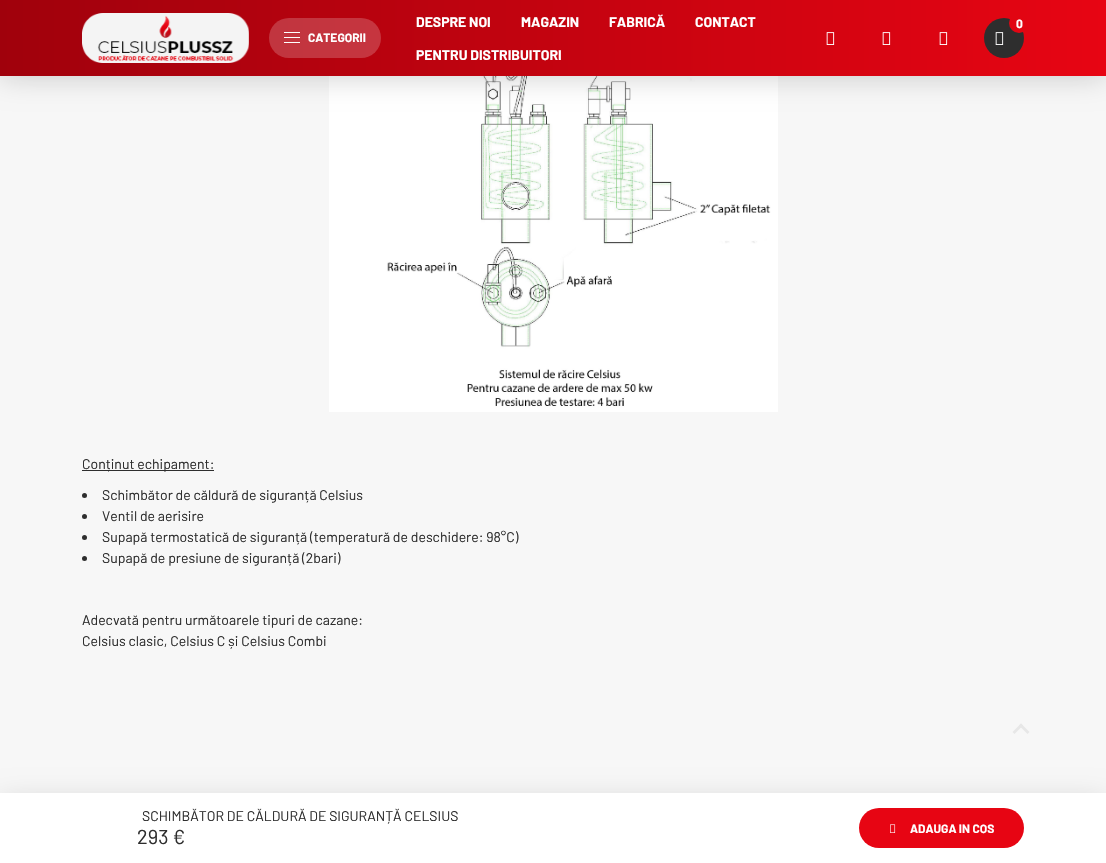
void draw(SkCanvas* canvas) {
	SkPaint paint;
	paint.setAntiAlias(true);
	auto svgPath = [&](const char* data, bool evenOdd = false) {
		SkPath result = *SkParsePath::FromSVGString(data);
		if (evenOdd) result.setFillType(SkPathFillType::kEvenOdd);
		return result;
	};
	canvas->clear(0xfff7f7f7);
	canvas->drawImageRect(SkImages::DeferredFromEncodedData(SkData::MakeFromFileName("img6.png")), SkRect::MakeXYWH(329, 76, 449, 336), SkSamplingOptions());
	paint.setColor(0x33000000);
	paint.setMaskFilter(SkMaskFilter::MakeBlur(kNormal_SkBlurStyle, 15));
	canvas->drawRect(SkRect::MakeXYWH(0, 0, 1106, 76), paint);
	paint.setMaskFilter(nullptr);
	{
		const SkColor colors[] = {0xffa0010c, 0xffe70513};
		const float stops[] = {0, 1};
		const SkPoint ends[] = {{0, 432}, {1106, 431}};
		paint.setShader(SkGradientShader::MakeLinear(ends, colors, stops, 2, SkTileMode::kClamp));
		paint.setAlpha(255);
	}
	canvas->drawRect(SkRect::MakeXYWH(0, 0, 1106, 76), paint);
	canvas->drawImageRect(SkImages::DeferredFromEncodedData(SkData::MakeFromFileName("img1.png")), SkRect::MakeXYWH(82, 13, 167, 50), SkSamplingOptions());
	paint.setShader(nullptr);
	paint.setColor(0x33ffffff);
	canvas->drawRoundRect(SkRect::MakeXYWH(269, 18, 112, 40), 20, 20, paint);
	paint.setColor(0xffffffff);
	canvas->drawRect(SkRect::MakeXYWH(284, 32, 16, 1), paint);
	canvas->drawRect(SkRect::MakeXYWH(284, 37, 16, 1), paint);
	canvas->drawRect(SkRect::MakeXYWH(284, 42, 16, 1), paint);
	SkFont f1(fontMgr->matchFamilyStyle("Barlow", SkFontStyle::Bold()), 12);
	f1.setSubpixel(true);
	canvas->drawString("CATEGORII", 308, 42, f1, paint);
	SkFont f2(fontMgr->matchFamilyStyle("Barlow", SkFontStyle::Bold()), 14);
	f2.setSubpixel(true);
	canvas->drawString("DESPRE NOI", 416, 27, f2, paint);
	canvas->drawString("MAGAZIN", 521, 27, f2, paint);
	canvas->drawString("FABRICĂ", 609, 27, f2, paint);
	canvas->drawString("CONTACT", 695, 27, f2, paint);
	canvas->drawString("PENTRU DISTRIBUITORI", 416, 60, f2, paint);
	paint.setColor(0xff2e2e2e);
	canvas->drawCircle(1004, 38, 20, paint);
	{
		const SkColor colors[] = {0xffa0010c, 0xffe70513};
		const float stops[] = {0, 1};
		const SkPoint ends[] = {{0, 432}, {1106, 431}};
		paint.setShader(SkGradientShader::MakeLinear(ends, colors, stops, 2, SkTileMode::kClamp));
		paint.setAlpha(255);
	}
	canvas->drawCircle(1019, 23, 10, paint);
	paint.setShader(nullptr);
	paint.setColor(0xffffffff);
	canvas->drawString("0", 1016, 28, f1, paint);
	canvas->drawImageRect(SkImages::DeferredFromEncodedData(SkData::MakeFromFileName("img2.png")), SkRect::MakeXYWH(995, 32, 9, 13), SkSamplingOptions());
	canvas->drawImageRect(SkImages::DeferredFromEncodedData(SkData::MakeFromFileName("img3.png")), SkRect::MakeXYWH(826, 32, 9, 13), SkSamplingOptions());
	canvas->drawImageRect(SkImages::DeferredFromEncodedData(SkData::MakeFromFileName("img4.png")), SkRect::MakeXYWH(882, 32, 9, 13), SkSamplingOptions());
	canvas->drawImageRect(SkImages::DeferredFromEncodedData(SkData::MakeFromFileName("img5.png")), SkRect::MakeXYWH(939, 32, 9, 13), SkSamplingOptions());
	paint.setColor(0xff2e2e2e);
	canvas->drawRect(SkRect::MakeXYWH(82, 470, 132, 1), paint);
	SkFont f3(fontMgr->matchFamilyStyle("Barlow", SkFontStyle::Normal()), 14);
	f3.setSubpixel(true);
	canvas->drawString("Conținut echipament:", 82, 469, f3, paint);
	canvas->drawCircle(84.5, 495.5, 2.5, paint);
	canvas->drawString("Schimbător de căldură de siguranță Celsius", 102, 500, f3, paint);
	canvas->drawCircle(84.5, 516.5, 2.5, paint);
	canvas->drawString("Ventil de aerisire", 102, 521, f3, paint);
	canvas->drawCircle(84.5, 537.5, 2.5, paint);
	canvas->drawString("Supapă termostatică de siguranță (temperatură de deschidere: 98°C)", 102, 542, f3, paint);
	canvas->drawCircle(84.5, 558.5, 2.5, paint);
	canvas->drawString("Supapă de presiune de siguranță (2bari)", 102, 563, f3, paint);
	canvas->drawString("Adecvată pentru următoarele tipuri de cazane:", 82, 625, f3, paint);
	canvas->drawString("Celsius clasic, Celsius C și Celsius Combi", 82, 646, f3, paint);
	paint.setColor(0x2e000000);
	paint.setMaskFilter(SkMaskFilter::MakeBlur(kNormal_SkBlurStyle, 15));
	canvas->drawRect(SkRect::MakeXYWH(0, 803, 1106, 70), paint);
	paint.setMaskFilter(nullptr);
	paint.setColor(0xffffffff);
	canvas->drawRect(SkRect::MakeXYWH(0, 793, 1106, 70), paint);
	paint.setColor(0xff2e2e2e);
	canvas->drawString("SCHIMBĂTOR DE CĂLDURĂ DE SIGURANȚĂ CELSIUS", 142, 821, f3, paint);
	SkFont f4(fontMgr->matchFamilyStyle("Barlow", SkFontStyle::Normal()), 20);
	f4.setSubpixel(true);
	canvas->drawString("293 €", 137, 844, f4, paint);
	{
		const SkColor colors[] = {0xffe70513, 0xff2e2e2e};
		const float stops[] = {0.33, 0.67};
		const SkPoint ends[] = {{859, 828}, {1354, 828}};
		paint.setShader(SkGradientShader::MakeLinear(ends, colors, stops, 2, SkTileMode::kClamp));
		paint.setAlpha(255);
	}
	canvas->drawRoundRect(SkRect::MakeXYWH(859, 808, 165, 40), 20, 20, paint);
	canvas->drawImageRect(SkImages::DeferredFromEncodedData(SkData::MakeFromFileName("img7.png")), SkRect::MakeXYWH(890, 824, 6, 9), SkSamplingOptions());
	paint.setShader(nullptr);
	paint.setColor(0xffffffff);
	canvas->drawString("ADAUGA IN COS", 910, 833, f1, paint);
	paint.setColor(0xffe7e7e7);
	canvas->drawPath(svgPath("M1027.5 734L1019 725.5L1021 723.5L1029.5 732Z"), paint);
	canvas->drawPath(svgPath("M1012.5 732L1021 723.5L1023 725.5L1014.5 734Z"), paint);
}
